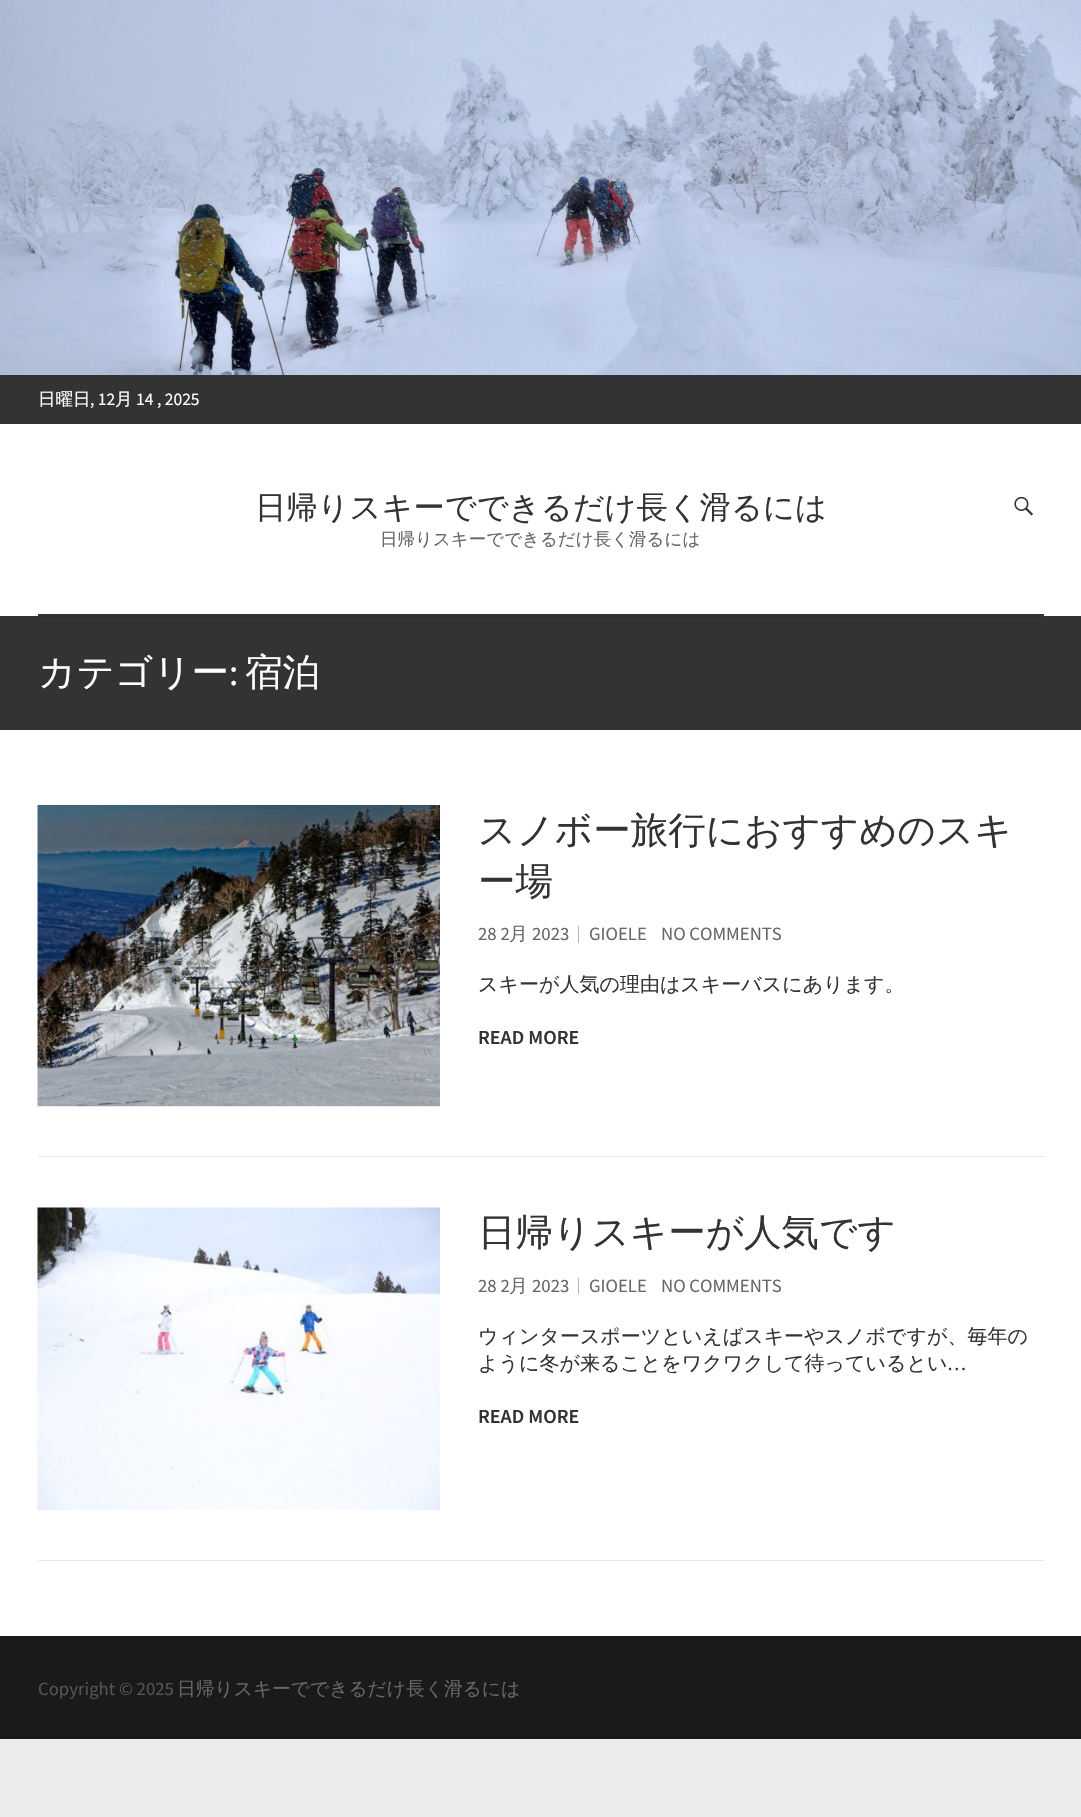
void draw(SkCanvas* canvas) {
	SkPaint paint;
	paint.setAntiAlias(true);
	canvas->clear(0xffececec);
	paint.setColor(0xffffffff);
	canvas->drawRect(SkRect::MakeXYWH(0, 424, 1081, 1212), paint);
	canvas->drawImageRect(SkImages::DeferredFromEncodedData(SkData::MakeFromFileName("img1.png")), SkRect::MakeXYWH(0, 0, 1081, 375), SkSamplingOptions());
	paint.setColor(0xff333333);
	canvas->drawRect(SkRect::MakeXYWH(0, 375, 1081, 49), paint);
	SkFont f1(fontMgr->matchFamilyStyle("WenQuanYi Zen Hei", SkFontStyle(500, SkFontStyle::kNormal_Width, SkFontStyle::kUpright_Slant)), 17.5);
	f1.setSubpixel(true);
	paint.setColor(0xffffffff);
	canvas->drawString("日曜日", 38, 405, f1, paint);
	SkFont f2(fontMgr->matchFamilyStyle("Source Sans Pro", SkFontStyle::Normal()), 17.5);
	f2.setSubpixel(true);
	canvas->drawString(", 12", 90, 405, f2, paint);
	canvas->drawString("月", 115, 405, f1, paint);
	canvas->drawString("14 , 2025", 136, 405, f2, paint);
	SkFont f3(fontMgr->matchFamilyStyle("WenQuanYi Zen Hei", SkFontStyle(500, SkFontStyle::kNormal_Width, SkFontStyle::kUpright_Slant)), 31.25);
	f3.setSubpixel(true);
	paint.setColor(0xff333333);
	canvas->drawString("日帰りスキーでできるだけ長く滑るには", 255, 518, f3, paint);
	paint.setColor(0xff666666);
	canvas->drawString("日帰りスキーでできるだけ長く滑るには", 380, 545, f1, paint);
	canvas->drawImageRect(SkImages::DeferredFromEncodedData(SkData::MakeFromFileName("img2.png")), SkRect::MakeXYWH(1014, 496, 19, 20), SkSamplingOptions());
	paint.setColor(0xff333333);
	canvas->drawRect(SkRect::MakeXYWH(38, 614, 1006, 2), paint);
	canvas->drawRect(SkRect::MakeXYWH(0, 616, 1081, 114), paint);
	paint.setColor(0xff2e2e2e);
	canvas->drawRect(SkRect::MakeXYWH(38, 616, 1006, 1), paint);
	SkFont f4(fontMgr->matchFamilyStyle("WenQuanYi Zen Hei", SkFontStyle(500, SkFontStyle::kNormal_Width, SkFontStyle::kUpright_Slant)), 37.5);
	f4.setSubpixel(true);
	paint.setColor(0xffffffff);
	canvas->drawString("カテゴリー", 38, 685, f4, paint);
	SkFont f5(fontMgr->matchFamilyStyle("Source Sans Pro", SkFontStyle::Normal()), 37.5);
	f5.setSubpixel(true);
	canvas->drawString(":", 229, 685, f5, paint);
	canvas->drawString("宿泊", 245, 685, f4, paint);
	paint.setColor(0xffe6e6e6);
	canvas->drawRect(SkRect::MakeXYWH(38, 1156, 1006, 1), paint);
	canvas->drawImageRect(SkImages::DeferredFromEncodedData(SkData::MakeFromFileName("img3.png")), SkRect::MakeXYWH(37, 805, 403, 302), SkSamplingOptions());
	paint.setColor(0xff333333);
	canvas->drawString("スノボー旅行におすすめのスキ", 478, 843, f4, paint);
	canvas->drawString("ー場", 478, 894, f4, paint);
	SkFont f6(fontMgr->matchFamilyStyle("Source Sans Pro", SkFontStyle::Normal()), 18.75);
	f6.setSubpixel(true);
	paint.setColor(0xff666666);
	canvas->drawString("28 2", 478, 940, f6, paint);
	SkFont f7(fontMgr->matchFamilyStyle("WenQuanYi Zen Hei", SkFontStyle(500, SkFontStyle::kNormal_Width, SkFontStyle::kUpright_Slant)), 18.75);
	f7.setSubpixel(true);
	canvas->drawString("月", 509, 940, f7, paint);
	canvas->drawString("2023", 532, 940, f6, paint);
	paint.setColor(0xffb3b3b3);
	canvas->drawRect(SkRect::MakeXYWH(578, 926, 1, 17), paint);
	paint.setColor(0xff666666);
	canvas->drawString("GIOELE", 589, 940, f6, paint);
	canvas->drawString("NO COMMENTS", 661, 940, f6, paint);
	SkFont f8(fontMgr->matchFamilyStyle("WenQuanYi Zen Hei", SkFontStyle(500, SkFontStyle::kNormal_Width, SkFontStyle::kUpright_Slant)), 20);
	f8.setSubpixel(true);
	paint.setColor(0xff333333);
	canvas->drawString("スキーが人気の理由はスキーバスにあります。", 478, 991, f8, paint);
	SkFont f9(fontMgr->matchFamilyStyle("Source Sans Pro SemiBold", SkFontStyle(600, SkFontStyle::kNormal_Width, SkFontStyle::kUpright_Slant)), 20);
	f9.setSubpixel(true);
	canvas->drawString("READ MORE", 478, 1044, f9, paint);
	paint.setColor(0xffe6e6e6);
	canvas->drawRect(SkRect::MakeXYWH(38, 1560, 1006, 1), paint);
	canvas->drawImageRect(SkImages::DeferredFromEncodedData(SkData::MakeFromFileName("img4.png")), SkRect::MakeXYWH(37, 1207, 403, 303), SkSamplingOptions());
	paint.setColor(0xff333333);
	canvas->drawString("日帰りスキーが人気です", 478, 1245, f4, paint);
	paint.setColor(0xff666666);
	canvas->drawString("28 2", 478, 1292, f6, paint);
	canvas->drawString("月", 509, 1292, f7, paint);
	canvas->drawString("2023", 532, 1292, f6, paint);
	paint.setColor(0xffb3b3b3);
	canvas->drawRect(SkRect::MakeXYWH(578, 1278, 1, 16), paint);
	paint.setColor(0xff666666);
	canvas->drawString("GIOELE", 589, 1292, f6, paint);
	canvas->drawString("NO COMMENTS", 661, 1292, f6, paint);
	paint.setColor(0xff333333);
	canvas->drawString("ウィンタースポーツといえばスキーやスノボですが、毎年の", 478, 1343, f8, paint);
	canvas->drawString("ように冬が来ることをワクワクして待っているとい", 478, 1370, f8, paint);
	SkFont f10(fontMgr->matchFamilyStyle("Source Sans Pro", SkFontStyle::Normal()), 20);
	f10.setSubpixel(true);
	canvas->drawString("…", 947, 1370, f10, paint);
	canvas->drawString("READ MORE", 478, 1423, f9, paint);
	paint.setColor(0xff1a1a1a);
	canvas->drawRect(SkRect::MakeXYWH(0, 1636, 1081, 103), paint);
	paint.setColor(0xff555555);
	canvas->drawString("Copyright © 2025", 38, 1695, f6, paint);
	paint.setColor(0xff666666);
	canvas->drawString("日帰りスキーでできるだけ長く滑るには", 177, 1695, f7, paint);
}
